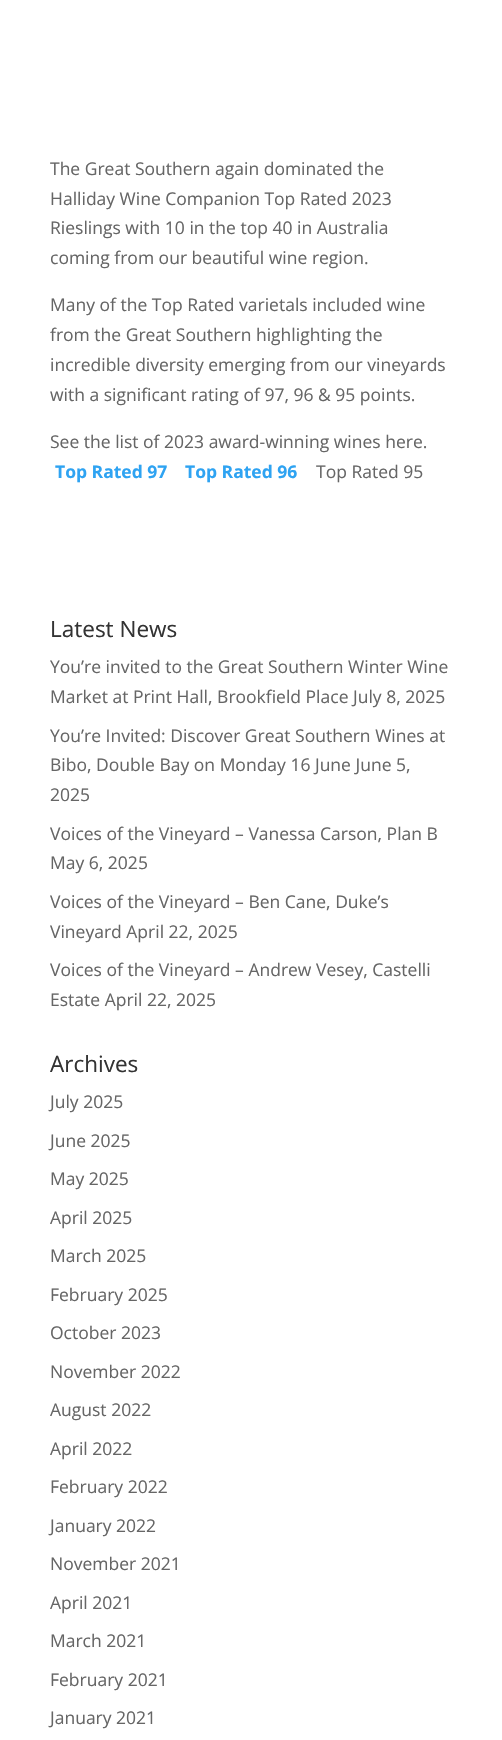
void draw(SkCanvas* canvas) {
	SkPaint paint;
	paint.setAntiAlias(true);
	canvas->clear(0xffffffff);
	SkFont f1(fontMgr->matchFamilyStyle("Open Sans", SkFontStyle::Normal()), 17.5);
	f1.setSubpixel(true);
	paint.setColor(0xff666666);
	canvas->drawString("The Great Southern again dominated the", 50, 175, f1, paint);
	canvas->drawString("Halliday Wine Companion Top Rated 2023", 50, 205, f1, paint);
	canvas->drawString("Rieslings with 10 in the top 40 in Australia", 50, 234, f1, paint);
	canvas->drawString("coming from our beautiful wine region.", 50, 264, f1, paint);
	canvas->drawString("Many of the Top Rated varietals included wine", 50, 311, f1, paint);
	canvas->drawString("from the Great Southern highlighting the", 50, 341, f1, paint);
	canvas->drawString("incredible diversity emerging from our vineyards", 50, 371, f1, paint);
	canvas->drawString("with a significant rating of 97, 96 & 95 points.", 50, 401, f1, paint);
	canvas->drawString("See the list of 2023 award-winning wines here.", 50, 448, f1, paint);
	SkFont f2(fontMgr->matchFamilyStyle("Open Sans", SkFontStyle::Bold()), 17.5);
	f2.setSubpixel(true);
	paint.setColor(0xff2ea3f2);
	canvas->drawString("Top Rated 97", 55, 478, f2, paint);
	canvas->drawString("Top Rated 96", 185, 478, f2, paint);
	paint.setColor(0xff666666);
	canvas->drawString("Top Rated 95", 316, 478, f1, paint);
	SkFont f3(fontMgr->matchFamilyStyle("Open Sans", SkFontStyle::Normal()), 22.5);
	f3.setSubpixel(true);
	paint.setColor(0xff333333);
	canvas->drawString("Latest News", 50, 637, f3, paint);
	paint.setColor(0xff666666);
	canvas->drawString("You’re invited to the Great Southern Winter Wine", 50, 673, f1, paint);
	canvas->drawString("Market at Print Hall, Brookfield Place July 8, 2025", 50, 703, f1, paint);
	canvas->drawString("You’re Invited: Discover Great Southern Wines at", 50, 742, f1, paint);
	canvas->drawString("Bibo, Double Bay on Monday 16 June June 5,", 50, 771, f1, paint);
	canvas->drawString("2025", 50, 801, f1, paint);
	canvas->drawString("Voices of the Vineyard – Vanessa Carson, Plan B", 50, 840, f1, paint);
	canvas->drawString("May 6, 2025", 50, 869, f1, paint);
	canvas->drawString("Voices of the Vineyard – Ben Cane, Duke’s", 50, 908, f1, paint);
	canvas->drawString("Vineyard April 22, 2025", 50, 938, f1, paint);
	canvas->drawString("Voices of the Vineyard – Andrew Vesey, Castelli", 50, 976, f1, paint);
	canvas->drawString("Estate April 22, 2025", 50, 1006, f1, paint);
	paint.setColor(0xff333333);
	canvas->drawString("Archives", 50, 1072, f3, paint);
	paint.setColor(0xff666666);
	canvas->drawString("July 2025", 50, 1108, f1, paint);
	canvas->drawString("June 2025", 50, 1147, f1, paint);
	canvas->drawString("May 2025", 50, 1185, f1, paint);
	canvas->drawString("April 2025", 50, 1224, f1, paint);
	canvas->drawString("March 2025", 50, 1262, f1, paint);
	canvas->drawString("February 2025", 50, 1301, f1, paint);
	canvas->drawString("October 2023", 50, 1339, f1, paint);
	canvas->drawString("November 2022", 50, 1378, f1, paint);
	canvas->drawString("August 2022", 50, 1416, f1, paint);
	canvas->drawString("April 2022", 50, 1455, f1, paint);
	canvas->drawString("February 2022", 50, 1493, f1, paint);
	canvas->drawString("January 2022", 50, 1532, f1, paint);
	canvas->drawString("November 2021", 50, 1570, f1, paint);
	canvas->drawString("April 2021", 50, 1609, f1, paint);
	canvas->drawString("March 2021", 50, 1647, f1, paint);
	canvas->drawString("February 2021", 50, 1686, f1, paint);
	canvas->drawString("January 2021", 50, 1724, f1, paint);
}
